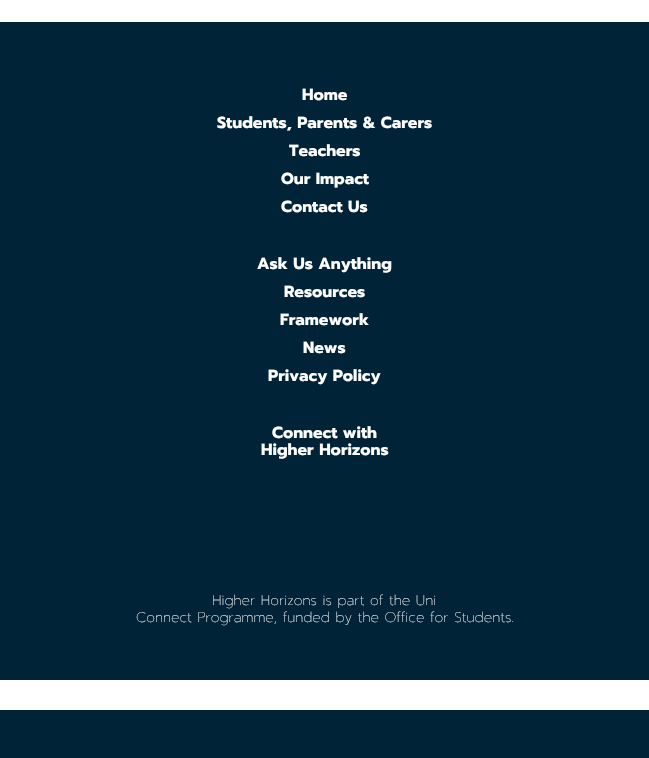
void draw(SkCanvas* canvas) {
	SkPaint paint;
	paint.setAntiAlias(true);
	canvas->clear(0xffffffff);
	paint.setColor(0xff002337);
	canvas->drawRect(SkRect::MakeXYWH(0, 22, 649, 658), paint);
	SkFont f1(fontMgr->matchFamilyStyle("Prompt", SkFontStyle::Bold()), 16);
	f1.setSubpixel(true);
	paint.setColor(0xffffffff);
	canvas->drawString("Home", 302, 100, f1, paint);
	canvas->drawString("Students, Parents & Carers", 217, 128, f1, paint);
	canvas->drawString("Teachers", 289, 156, f1, paint);
	canvas->drawString("Our Impact", 281, 184, f1, paint);
	canvas->drawString("Contact Us", 281, 212, f1, paint);
	canvas->drawString("Ask Us Anything", 257, 269, f1, paint);
	canvas->drawString("Resources", 284, 297, f1, paint);
	canvas->drawString("Framework", 280, 325, f1, paint);
	canvas->drawString("News", 303, 353, f1, paint);
	canvas->drawString("Privacy Policy", 268, 381, f1, paint);
	canvas->drawString("Connect with", 272, 438, f1, paint);
	canvas->drawString("Higher Horizons", 261, 455, f1, paint);
	SkFont f2(fontMgr->matchFamilyStyle("Prompt", SkFontStyle(200, SkFontStyle::kNormal_Width, SkFontStyle::kUpright_Slant)), 14);
	f2.setSubpixel(true);
	canvas->drawString("Higher Horizons is part of the Uni", 212, 605, f2, paint);
	canvas->drawString("Connect Programme, funded by the Office for Students.", 136, 622, f2, paint);
	paint.setColor(0xff002337);
	canvas->drawRect(SkRect::MakeXYWH(0, 710, 649, 48), paint);
}
